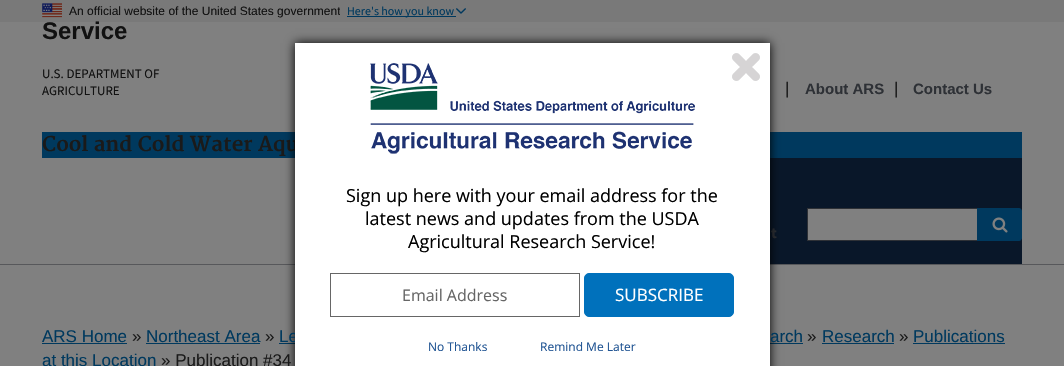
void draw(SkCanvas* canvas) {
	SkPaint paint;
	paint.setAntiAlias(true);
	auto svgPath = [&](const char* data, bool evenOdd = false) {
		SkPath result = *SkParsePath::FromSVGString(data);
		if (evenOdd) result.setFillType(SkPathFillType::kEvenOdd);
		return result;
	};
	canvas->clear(0xff808080);
	paint.setColor(0xff57585b);
	canvas->drawRect(SkRect::MakeXYWH(0, 264, 1064, 1), paint);
	paint.setColor(0xff797979);
	canvas->drawRect(SkRect::MakeXYWH(0, 0, 1064, 22), paint);
	canvas->drawImageRect(SkImages::DeferredFromEncodedData(SkData::MakeFromFileName("img1.png")), SkRect::MakeXYWH(42, 3, 20, 15), SkSamplingOptions());
	canvas->save();
	canvas->clipRect(SkRect::MakeXYWH(69, 2, 271, 18));
	SkFont f1(fontMgr->matchFamilyStyle("Liberation Sans", SkFontStyle::Normal()), 12);
	f1.setSubpixel(true);
	paint.setColor(0xff111111);
	canvas->drawString("An official website of the United States government", 69, 15, f1, paint);
	canvas->restore();
	paint.setColor(0xff00395e);
	canvas->drawRect(SkRect::MakeXYWH(347, 16, 109, 1), paint);
	SkFont f2(fontMgr->matchFamilyStyle("Source Sans Pro", SkFontStyle::Normal()), 12);
	f2.setSubpixel(true);
	canvas->drawString("Here's how you know", 347, 15, f2, paint);
	canvas->drawImageRect(SkImages::DeferredFromEncodedData(SkData::MakeFromFileName("img2.png")), SkRect::MakeXYWH(456, 8, 10, 6), SkSamplingOptions());
	SkFont f3(fontMgr->matchFamilyStyle("Liberation Sans", SkFontStyle::Bold()), 24);
	f3.setSubpixel(true);
	paint.setColor(0xff111111);
	canvas->drawString("Service", 42, 39, f3, paint);
	SkFont f4(fontMgr->matchFamilyStyle("Source Sans Pro", SkFontStyle::Normal()), 13);
	f4.setSubpixel(true);
	canvas->drawString("U.S. DEPARTMENT OF", 42, 78, f4, paint);
	canvas->drawString("AGRICULTURE", 42, 95, f4, paint);
	paint.setColor(0xff00395e);
	canvas->drawRect(SkRect::MakeXYWH(42, 132, 980, 26), paint);
	SkFont f5(fontMgr->matchFamilyStyle("Merriweather", SkFontStyle::Bold()), 20);
	f5.setSubpixel(true);
	paint.setColor(0xff1a1a1a);
	canvas->drawString("Cool and Cold Water Aqu", 42, 151, f5, paint);
	paint.setColor(0xff091729);
	canvas->drawRect(SkRect::MakeXYWH(770, 158, 252, 106), paint);
	SkFont f6(fontMgr->matchFamilyStyle("Liberation Sans", SkFontStyle::Normal()), 17);
	f6.setSubpixel(true);
	paint.setColor(0xff1a1a1a);
	canvas->drawString("|", 785, 94, f6, paint);
	SkFont f7(fontMgr->matchFamilyStyle("Liberation Sans", SkFontStyle::Bold()), 15);
	f7.setSubpixel(true);
	paint.setColor(0xff2e3136);
	canvas->drawString("About ARS", 805, 94, f7, paint);
	paint.setColor(0xff1a1a1a);
	canvas->drawString("|", 894, 94, f6, paint);
	paint.setColor(0xff2e3136);
	canvas->drawString("Contact Us", 913, 94, f7, paint);
	SkFont f8(fontMgr->matchFamilyStyle("Source Sans Pro", SkFontStyle::Bold()), 15);
	f8.setSubpixel(true);
	canvas->drawString("t", 771, 238, f8, paint);
	paint.setColor(0xff808080);
	canvas->drawRect(SkRect::MakeXYWH(808, 209, 169, 31), paint);
	paint.setColor(0xff2e3136);
	canvas->drawRect(SkRect::MakeXYWH(807, 208, 170, 1), paint);
	canvas->drawRect(SkRect::MakeXYWH(807, 240, 170, 1), paint);
	canvas->drawRect(SkRect::MakeXYWH(807, 208, 1, 33), paint);
	paint.setColor(0xff00395e);
	canvas->drawPath(svgPath("M977 208H1019C1020.5 208 1022 209.5 1022 211V238C1022 239.5 1020.5 241 1019 241H977Z"), paint);
	canvas->drawImageRect(SkImages::DeferredFromEncodedData(SkData::MakeFromFileName("img3.png")), SkRect::MakeXYWH(992, 217, 16, 16), SkSamplingOptions());
	canvas->drawRect(SkRect::MakeXYWH(279, 343, 16, 1), paint);
	canvas->drawRect(SkRect::MakeXYWH(770, 343, 33, 1), paint);
	paint.setColor(0xff000000);
	paint.setMaskFilter(SkMaskFilter::MakeBlur(kNormal_SkBlurStyle, 5));
	canvas->drawRect(SkRect::MakeXYWH(295, 43, 475, 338), paint);
	paint.setMaskFilter(nullptr);
	paint.setColor(0xff00395e);
	canvas->drawString("Le", 279, 342, f6, paint);
	paint.setColor(0xffffffff);
	canvas->drawRect(SkRect::MakeXYWH(295, 43, 475, 323), paint);
	canvas->drawImageRect(SkImages::DeferredFromEncodedData(SkData::MakeFromFileName("img4.png")), SkRect::MakeXYWH(370, 63, 325, 91), SkSamplingOptions());
	canvas->drawImageRect(SkImages::DeferredFromEncodedData(SkData::MakeFromFileName("img5.png")), SkRect::MakeXYWH(732, 53, 28, 28), SkSamplingOptions());
	SkFont f9(fontMgr->matchFamilyStyle("Open Sans", SkFontStyle::Normal()), 18);
	f9.setSubpixel(true);
	paint.setColor(0xff000000);
	canvas->drawString("Sign up here with your email address for the", 346, 202, f9, paint);
	canvas->drawString("latest news and updates from the USDA", 365, 225, f9, paint);
	canvas->drawString("Agricultural Research Service!", 408, 248, f9, paint);
	paint.setStroke(true);
	paint.setStrokeWidth(1);
	paint.setColor(0xff666666);
	canvas->drawRect(SkRect::MakeXYWH(330.5, 273.5, 249, 43), paint);
	SkFont f10(fontMgr->matchFamilyStyle("Open Sans", SkFontStyle::Normal()), 16);
	f10.setSubpixel(true);
	paint.setStroke(false);
	canvas->drawString("Email Address", 402, 301, f10, paint);
	paint.setColor(0xff0071bc);
	canvas->drawRoundRect(SkRect::MakeXYWH(584.5, 273.5, 149, 43), 4.5, 4.5, paint);
	paint.setStroke(true);
	canvas->drawRoundRect(SkRect::MakeXYWH(584.5, 273.5, 149, 43), 4.5, 4.5, paint);
	SkFont f11(fontMgr->matchFamilyStyle("Open Sans", SkFontStyle::Normal()), 17);
	f11.setSubpixel(true);
	paint.setStroke(false);
	paint.setColor(0xffffffff);
	canvas->drawString("SUBSCRIBE", 615, 301, f11, paint);
	SkFont f12(fontMgr->matchFamilyStyle("Open Sans", SkFontStyle::Normal()), 12);
	f12.setSubpixel(true);
	paint.setColor(0xff205493);
	canvas->drawString("No Thanks", 428, 351, f12, paint);
	canvas->drawString("Remind Me Later", 540, 351, f12, paint);
	paint.setColor(0xff00395e);
	canvas->drawString("ARS Home", 42, 342, f6, paint);
	canvas->drawRect(SkRect::MakeXYWH(42, 343, 85, 1), paint);
	paint.setColor(0xff1a1a1a);
	canvas->drawString("»", 132, 342, f6, paint);
	paint.setColor(0xff00395e);
	canvas->drawString("Northeast Area", 146, 342, f6, paint);
	canvas->drawRect(SkRect::MakeXYWH(146, 343, 114, 1), paint);
	paint.setColor(0xff1a1a1a);
	canvas->drawString("»", 265, 342, f6, paint);
	paint.setColor(0xff00395e);
	canvas->drawString("arch", 770, 342, f6, paint);
	paint.setColor(0xff1a1a1a);
	canvas->drawString("»", 807, 342, f6, paint);
	paint.setColor(0xff00395e);
	canvas->drawString("Research", 822, 342, f6, paint);
	canvas->drawRect(SkRect::MakeXYWH(822, 343, 72, 1), paint);
	paint.setColor(0xff1a1a1a);
	canvas->drawString("»", 899, 342, f6, paint);
	paint.setColor(0xff00395e);
	canvas->drawString("Publications", 913, 342, f6, paint);
	canvas->drawRect(SkRect::MakeXYWH(913, 343, 92, 1), paint);
	canvas->drawString("at this Location", 42, 366, f6, paint);
	paint.setColor(0xff1a1a1a);
	canvas->drawString("» Publication #34", 161, 366, f6, paint);
}
